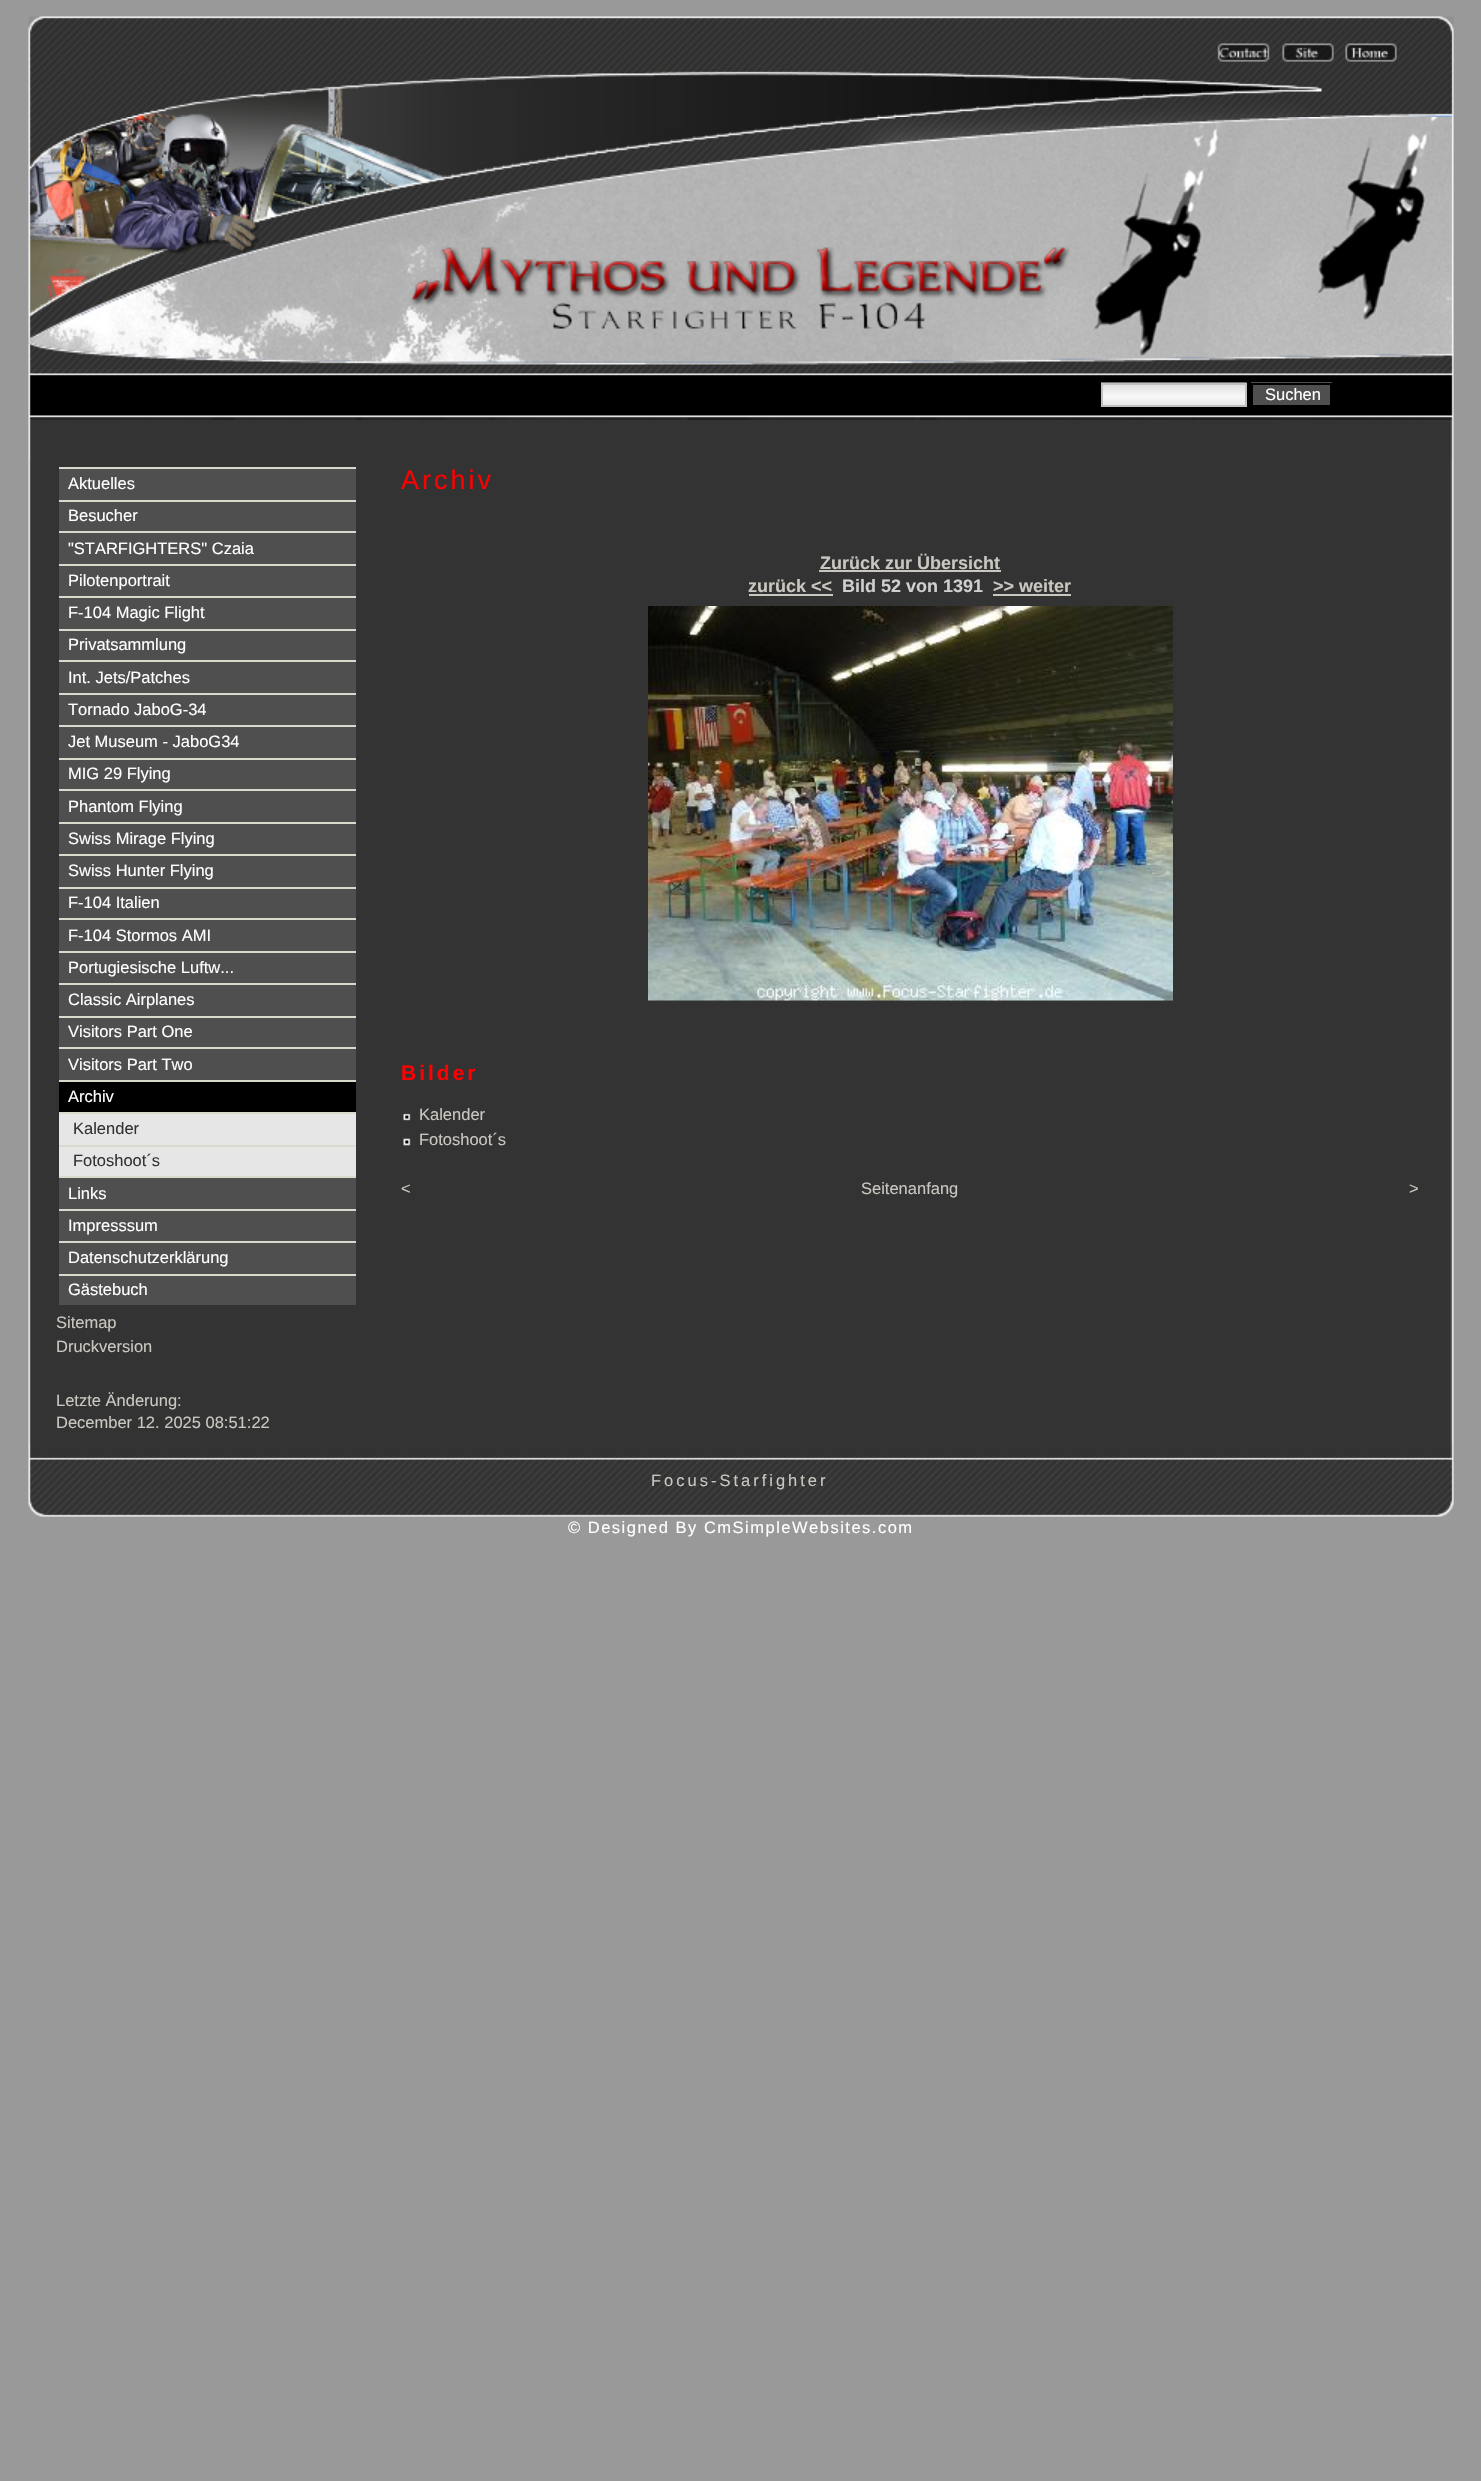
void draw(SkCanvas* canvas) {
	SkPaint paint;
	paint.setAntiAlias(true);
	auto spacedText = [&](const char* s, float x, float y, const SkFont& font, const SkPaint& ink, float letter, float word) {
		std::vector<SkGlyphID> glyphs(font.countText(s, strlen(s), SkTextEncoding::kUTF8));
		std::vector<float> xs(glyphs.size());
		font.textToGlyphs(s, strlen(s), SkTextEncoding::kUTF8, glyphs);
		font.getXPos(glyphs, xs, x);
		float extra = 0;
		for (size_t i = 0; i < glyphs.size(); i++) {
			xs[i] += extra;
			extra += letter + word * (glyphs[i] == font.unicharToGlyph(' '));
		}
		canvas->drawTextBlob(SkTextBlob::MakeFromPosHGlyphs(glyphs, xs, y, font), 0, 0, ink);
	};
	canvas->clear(0xff999999);
	canvas->drawImageRect(SkImages::DeferredFromEncodedData(SkData::MakeFromFileName("img1.png")), SkRect::MakeXYWH(28, 16, 1426, 101), SkSamplingOptions());
	canvas->drawImageRect(SkImages::DeferredFromEncodedData(SkData::MakeFromFileName("img2.png")), SkRect::MakeXYWH(28, 117, 1426, 252), SkSamplingOptions());
	canvas->drawImageRect(SkImages::DeferredFromEncodedData(SkData::MakeFromFileName("img3.png")), SkRect::MakeXYWH(28, 369, 1426, 51), SkSamplingOptions());
	canvas->drawImageRect(SkImages::DeferredFromEncodedData(SkData::MakeFromFileName("img4.png")), SkRect::MakeXYWH(1101, 382, 146, 23), SkSamplingOptions());
	paint.setStroke(true);
	paint.setStrokeWidth(2);
	paint.setColor(0xffc0c0c0);
	canvas->drawRect(SkRect::MakeXYWH(1102, 384, 144, 22), paint);
	paint.setStroke(false);
	paint.setColor(0xff4f4f4f);
	canvas->drawRect(SkRect::MakeXYWH(1251, 382, 81, 23), paint);
	paint.setStroke(true);
	paint.setColor(0xff000000);
	canvas->drawRect(SkRect::MakeXYWH(1252, 384, 79, 22), paint);
	SkFont f1(fontMgr->matchFamilyStyle("Liberation Sans", SkFontStyle::Normal()), 16.5);
	f1.setSubpixel(true);
	paint.setStroke(false);
	paint.setColor(0xffffffff);
	canvas->drawString("Suchen", 1265, 400, f1, paint);
	canvas->drawImageRect(SkImages::DeferredFromEncodedData(SkData::MakeFromFileName("img5.png")), SkRect::MakeXYWH(28, 420, 1426, 39), SkSamplingOptions());
	canvas->drawImageRect(SkImages::DeferredFromEncodedData(SkData::MakeFromFileName("img6.png")), SkRect::MakeXYWH(28, 459, 1426, 984), SkSamplingOptions());
	paint.setColor(0xff4f4f4f);
	canvas->drawRect(SkRect::MakeXYWH(59, 469, 297, 31), paint);
	paint.setColor(0xffd8dacb);
	canvas->drawRect(SkRect::MakeXYWH(59, 467, 297, 2), paint);
	paint.setColor(0xffffffff);
	canvas->drawString("Aktuelles", 68, 489, f1, paint);
	paint.setColor(0xff4f4f4f);
	canvas->drawRect(SkRect::MakeXYWH(59, 502, 297, 29), paint);
	paint.setColor(0xffd8dacb);
	canvas->drawRect(SkRect::MakeXYWH(59, 500, 297, 2), paint);
	paint.setColor(0xffffffff);
	canvas->drawString("Besucher", 68, 521, f1, paint);
	paint.setColor(0xff4f4f4f);
	canvas->drawRect(SkRect::MakeXYWH(59, 533, 297, 31), paint);
	paint.setColor(0xffd8dacb);
	canvas->drawRect(SkRect::MakeXYWH(59, 531, 297, 2), paint);
	paint.setColor(0xffffffff);
	canvas->drawString("\"STARFIGHTERS\" Czaia", 68, 554, f1, paint);
	paint.setColor(0xff4f4f4f);
	canvas->drawRect(SkRect::MakeXYWH(59, 566, 297, 30), paint);
	paint.setColor(0xffd8dacb);
	canvas->drawRect(SkRect::MakeXYWH(59, 564, 297, 2), paint);
	paint.setColor(0xffffffff);
	canvas->drawString("Pilotenportrait", 68, 586, f1, paint);
	paint.setColor(0xff4f4f4f);
	canvas->drawRect(SkRect::MakeXYWH(59, 598, 297, 31), paint);
	paint.setColor(0xffd8dacb);
	canvas->drawRect(SkRect::MakeXYWH(59, 596, 297, 2), paint);
	paint.setColor(0xffffffff);
	canvas->drawString("F-104 Magic Flight", 68, 618, f1, paint);
	paint.setColor(0xff4f4f4f);
	canvas->drawRect(SkRect::MakeXYWH(59, 631, 297, 29), paint);
	paint.setColor(0xffd8dacb);
	canvas->drawRect(SkRect::MakeXYWH(59, 629, 297, 2), paint);
	paint.setColor(0xffffffff);
	canvas->drawString("Privatsammlung", 68, 650, f1, paint);
	paint.setColor(0xff4f4f4f);
	canvas->drawRect(SkRect::MakeXYWH(59, 662, 297, 31), paint);
	paint.setColor(0xffd8dacb);
	canvas->drawRect(SkRect::MakeXYWH(59, 660, 297, 2), paint);
	paint.setColor(0xffffffff);
	canvas->drawString("Int. Jets/Patches", 68, 683, f1, paint);
	paint.setColor(0xff4f4f4f);
	canvas->drawRect(SkRect::MakeXYWH(59, 695, 297, 30), paint);
	paint.setColor(0xffd8dacb);
	canvas->drawRect(SkRect::MakeXYWH(59, 693, 297, 2), paint);
	paint.setColor(0xffffffff);
	canvas->drawString("Tornado JaboG-34", 68, 715, f1, paint);
	paint.setColor(0xff4f4f4f);
	canvas->drawRect(SkRect::MakeXYWH(59, 727, 297, 31), paint);
	paint.setColor(0xffd8dacb);
	canvas->drawRect(SkRect::MakeXYWH(59, 725, 297, 2), paint);
	paint.setColor(0xffffffff);
	canvas->drawString("Jet Museum - JaboG34", 68, 747, f1, paint);
	paint.setColor(0xff4f4f4f);
	canvas->drawRect(SkRect::MakeXYWH(59, 760, 297, 29), paint);
	paint.setColor(0xffd8dacb);
	canvas->drawRect(SkRect::MakeXYWH(59, 758, 297, 2), paint);
	paint.setColor(0xffffffff);
	canvas->drawString("MIG 29 Flying", 68, 779, f1, paint);
	paint.setColor(0xff4f4f4f);
	canvas->drawRect(SkRect::MakeXYWH(59, 791, 297, 31), paint);
	paint.setColor(0xffd8dacb);
	canvas->drawRect(SkRect::MakeXYWH(59, 789, 297, 2), paint);
	paint.setColor(0xffffffff);
	canvas->drawString("Phantom Flying", 68, 812, f1, paint);
	paint.setColor(0xff4f4f4f);
	canvas->drawRect(SkRect::MakeXYWH(59, 824, 297, 30), paint);
	paint.setColor(0xffd8dacb);
	canvas->drawRect(SkRect::MakeXYWH(59, 822, 297, 2), paint);
	paint.setColor(0xffffffff);
	canvas->drawString("Swiss Mirage Flying", 68, 844, f1, paint);
	paint.setColor(0xff4f4f4f);
	canvas->drawRect(SkRect::MakeXYWH(59, 856, 297, 31), paint);
	paint.setColor(0xffd8dacb);
	canvas->drawRect(SkRect::MakeXYWH(59, 854, 297, 2), paint);
	paint.setColor(0xffffffff);
	canvas->drawString("Swiss Hunter Flying", 68, 876, f1, paint);
	paint.setColor(0xff4f4f4f);
	canvas->drawRect(SkRect::MakeXYWH(59, 889, 297, 29), paint);
	paint.setColor(0xffd8dacb);
	canvas->drawRect(SkRect::MakeXYWH(59, 887, 297, 2), paint);
	paint.setColor(0xffffffff);
	canvas->drawString("F-104 Italien", 68, 908, f1, paint);
	paint.setColor(0xff4f4f4f);
	canvas->drawRect(SkRect::MakeXYWH(59, 920, 297, 31), paint);
	paint.setColor(0xffd8dacb);
	canvas->drawRect(SkRect::MakeXYWH(59, 918, 297, 2), paint);
	paint.setColor(0xffffffff);
	canvas->drawString("F-104 Stormos AMI", 68, 941, f1, paint);
	paint.setColor(0xff4f4f4f);
	canvas->drawRect(SkRect::MakeXYWH(59, 953, 297, 30), paint);
	paint.setColor(0xffd8dacb);
	canvas->drawRect(SkRect::MakeXYWH(59, 951, 297, 2), paint);
	paint.setColor(0xffffffff);
	canvas->drawString("Portugiesische Luftw...", 68, 973, f1, paint);
	paint.setColor(0xff4f4f4f);
	canvas->drawRect(SkRect::MakeXYWH(59, 985, 297, 31), paint);
	paint.setColor(0xffd8dacb);
	canvas->drawRect(SkRect::MakeXYWH(59, 983, 297, 2), paint);
	paint.setColor(0xffffffff);
	canvas->drawString("Classic Airplanes", 68, 1005, f1, paint);
	paint.setColor(0xff4f4f4f);
	canvas->drawRect(SkRect::MakeXYWH(59, 1018, 297, 29), paint);
	paint.setColor(0xffd8dacb);
	canvas->drawRect(SkRect::MakeXYWH(59, 1016, 297, 2), paint);
	paint.setColor(0xffffffff);
	canvas->drawString("Visitors Part One", 68, 1037, f1, paint);
	paint.setColor(0xff4f4f4f);
	canvas->drawRect(SkRect::MakeXYWH(59, 1049, 297, 31), paint);
	paint.setColor(0xffd8dacb);
	canvas->drawRect(SkRect::MakeXYWH(59, 1047, 297, 2), paint);
	paint.setColor(0xffffffff);
	canvas->drawString("Visitors Part Two", 68, 1070, f1, paint);
	paint.setColor(0xff000000);
	canvas->drawRect(SkRect::MakeXYWH(59, 1082, 297, 30), paint);
	paint.setColor(0xffd8dacb);
	canvas->drawRect(SkRect::MakeXYWH(59, 1080, 297, 2), paint);
	paint.setColor(0xffffffff);
	canvas->drawString("Archiv", 68, 1102, f1, paint);
	paint.setColor(0xffe6e6e6);
	canvas->drawRect(SkRect::MakeXYWH(59, 1114, 297, 31), paint);
	paint.setColor(0xffd8dacb);
	canvas->drawRect(SkRect::MakeXYWH(59, 1112, 297, 2), paint);
	paint.setColor(0xff333333);
	canvas->drawString("Kalender", 73, 1134, f1, paint);
	paint.setColor(0xffe6e6e6);
	canvas->drawRect(SkRect::MakeXYWH(59, 1147, 297, 29), paint);
	paint.setColor(0xffd8dacb);
	canvas->drawRect(SkRect::MakeXYWH(59, 1145, 297, 2), paint);
	paint.setColor(0xff333333);
	canvas->drawString("Fotoshoot´s", 73, 1166, f1, paint);
	paint.setColor(0xff4f4f4f);
	canvas->drawRect(SkRect::MakeXYWH(59, 1178, 297, 31), paint);
	paint.setColor(0xffd8dacb);
	canvas->drawRect(SkRect::MakeXYWH(59, 1176, 297, 2), paint);
	paint.setColor(0xffffffff);
	canvas->drawString("Links", 68, 1199, f1, paint);
	paint.setColor(0xff4f4f4f);
	canvas->drawRect(SkRect::MakeXYWH(59, 1211, 297, 30), paint);
	paint.setColor(0xffd8dacb);
	canvas->drawRect(SkRect::MakeXYWH(59, 1209, 297, 2), paint);
	paint.setColor(0xffffffff);
	canvas->drawString("Impresssum", 68, 1231, f1, paint);
	paint.setColor(0xff4f4f4f);
	canvas->drawRect(SkRect::MakeXYWH(59, 1243, 297, 31), paint);
	paint.setColor(0xffd8dacb);
	canvas->drawRect(SkRect::MakeXYWH(59, 1241, 297, 2), paint);
	paint.setColor(0xffffffff);
	canvas->drawString("Datenschutzerklärung", 68, 1263, f1, paint);
	paint.setColor(0xff4f4f4f);
	canvas->drawRect(SkRect::MakeXYWH(59, 1276, 297, 29), paint);
	paint.setColor(0xffd8dacb);
	canvas->drawRect(SkRect::MakeXYWH(59, 1274, 297, 2), paint);
	paint.setColor(0xffffffff);
	canvas->drawString("Gästebuch", 68, 1295, f1, paint);
	paint.setColor(0xffcac7c1);
	canvas->drawString("Sitemap", 56, 1328, f1, paint);
	canvas->drawString("Druckversion", 56, 1352, f1, paint);
	canvas->drawString("Letzte Änderung:", 56, 1406, f1, paint);
	canvas->drawString("December 12. 2025 08:51:22", 56, 1428, f1, paint);
	SkFont f2(fontMgr->matchFamilyStyle("Liberation Sans", SkFontStyle::Normal()), 27);
	f2.setSubpixel(true);
	paint.setColor(0xffff0000);
	spacedText("Archiv", 401, 489, f2, paint, 3, 0);
	SkFont f3(fontMgr->matchFamilyStyle("Liberation Sans", SkFontStyle::Bold()), 18);
	f3.setSubpixel(true);
	paint.setColor(0xffcac7c1);
	canvas->drawString("Zurück zur Übersicht", 820, 569, f3, paint);
	canvas->drawRect(SkRect::MakeXYWH(819, 570, 182, 2), paint);
	canvas->drawString("zurück <<", 748, 592, f3, paint);
	canvas->drawRect(SkRect::MakeXYWH(749, 594, 84, 2), paint);
	paint.setColor(0xffcfcfcf);
	canvas->drawString("Bild 52 von 1391", 842, 592, f3, paint);
	paint.setColor(0xffcac7c1);
	canvas->drawString(">> weiter", 993, 592, f3, paint);
	canvas->drawRect(SkRect::MakeXYWH(993, 594, 78, 2), paint);
	canvas->drawImageRect(SkImages::DeferredFromEncodedData(SkData::MakeFromFileName("img7.png")), SkRect::MakeXYWH(648, 606, 525, 395), SkSamplingOptions());
	SkFont f4(fontMgr->matchFamilyStyle("Liberation Sans", SkFontStyle::Bold()), 21);
	f4.setSubpixel(true);
	paint.setColor(0xffff0000);
	spacedText("Bilder", 401, 1080, f4, paint, 3, 0);
	canvas->drawImageRect(SkImages::DeferredFromEncodedData(SkData::MakeFromFileName("img8.png")), SkRect::MakeXYWH(403, 1113, 8, 8), SkSamplingOptions());
	paint.setColor(0xffcac7c1);
	canvas->drawString("Kalender", 419, 1120, f1, paint);
	canvas->drawImageRect(SkImages::DeferredFromEncodedData(SkData::MakeFromFileName("img9.png")), SkRect::MakeXYWH(403, 1138, 8, 8), SkSamplingOptions());
	canvas->drawString("Fotoshoot´s", 419, 1145, f1, paint);
	canvas->drawString("<", 401, 1194, f1, paint);
	canvas->drawString("Seitenanfang", 861, 1194, f1, paint);
	canvas->drawString(">", 1409, 1194, f1, paint);
	canvas->drawImageRect(SkImages::DeferredFromEncodedData(SkData::MakeFromFileName("img10.png")), SkRect::MakeXYWH(28, 1443, 1426, 74), SkSamplingOptions());
	spacedText("Focus-Starfighter", 651, 1486, f1, paint, 3, 0);
	paint.setColor(0xffffffff);
	spacedText("© Designed By CmSimpleWebsites.com", 568, 1533, f1, paint, 1.5, 0);
}
